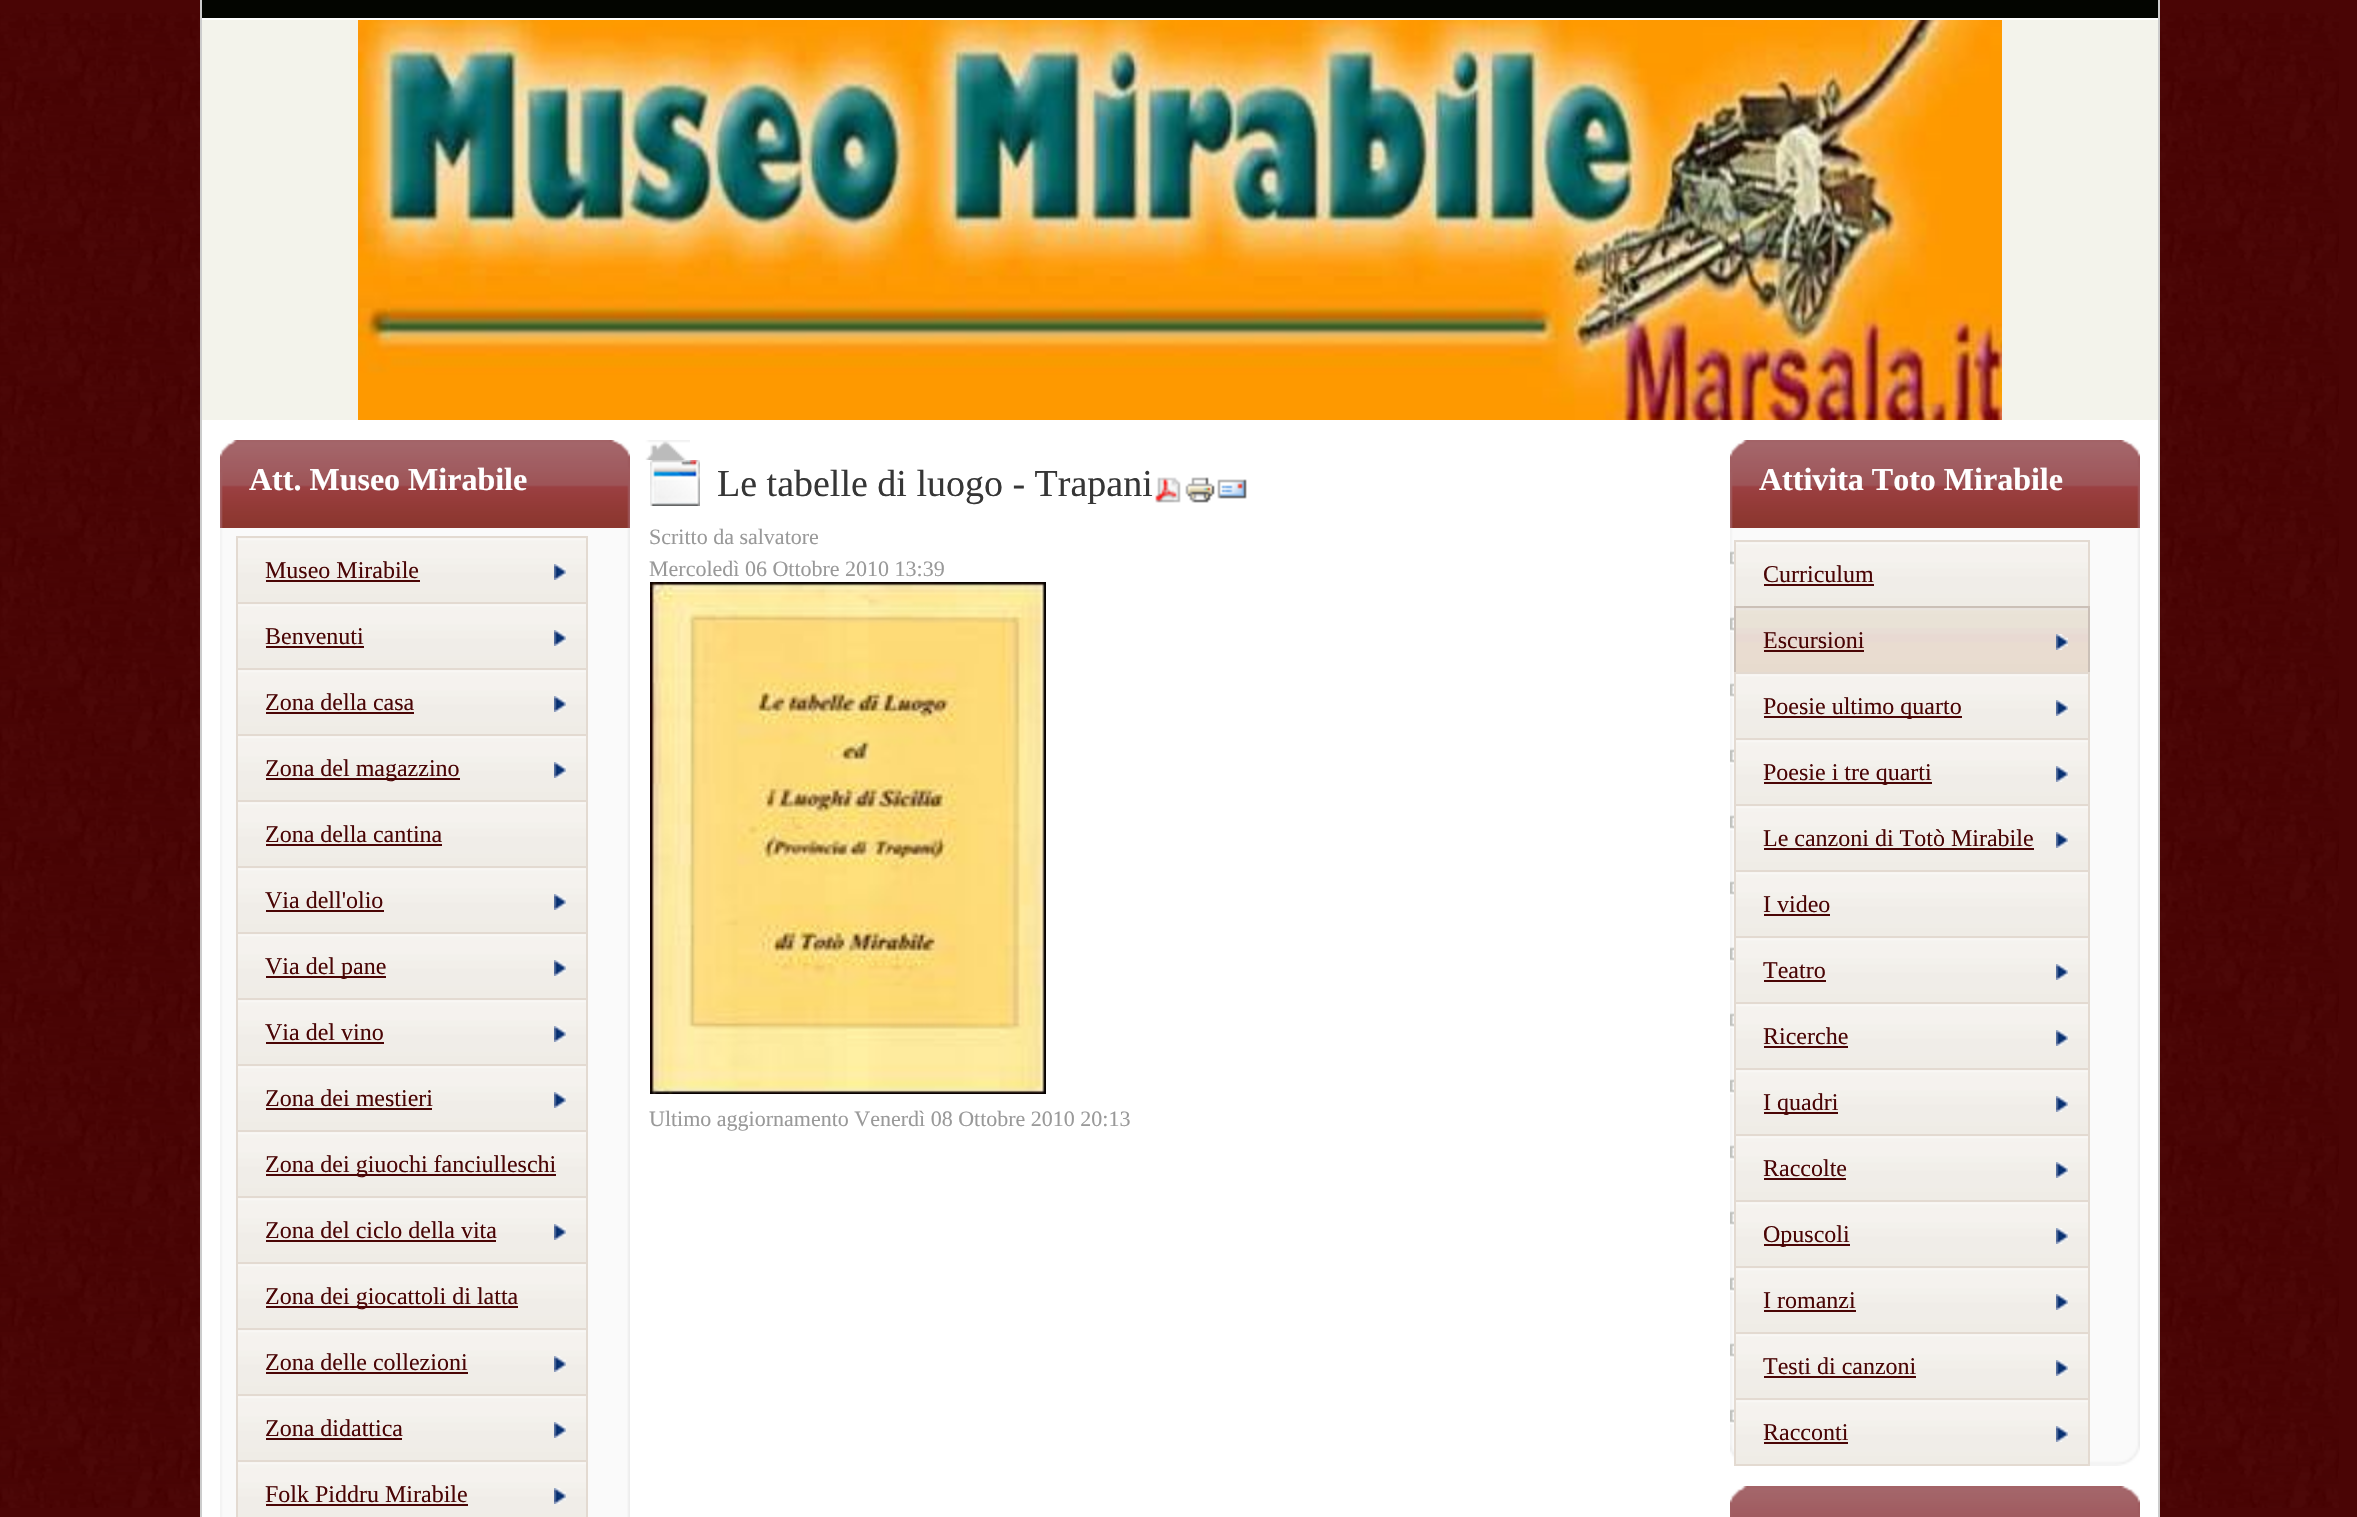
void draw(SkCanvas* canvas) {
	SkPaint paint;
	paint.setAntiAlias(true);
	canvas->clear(0xff4a0505);
	canvas->drawImageRect(SkImages::DeferredFromEncodedData(SkData::MakeFromFileName("img1.png")), SkRect::MakeXYWH(0, 13, 2339, 1495), SkSamplingOptions());
	paint.setColor(0xfff3f3eb);
	canvas->drawRect(SkRect::MakeXYWH(202, 20, 1956, 400), paint);
	canvas->drawImageRect(SkImages::DeferredFromEncodedData(SkData::MakeFromFileName("img2.png")), SkRect::MakeXYWH(358, 20, 1644, 400), SkSamplingOptions());
	paint.setColor(0xffffffff);
	canvas->drawRect(SkRect::MakeXYWH(200, 18, 1960, 2), paint);
	paint.setColor(0xffcccccc);
	canvas->drawRect(SkRect::MakeXYWH(2158, 0, 2, 1517), paint);
	canvas->drawRect(SkRect::MakeXYWH(200, 0, 2, 1517), paint);
	paint.setColor(0xff030500);
	canvas->drawRect(SkRect::MakeXYWH(202, 0, 1956, 18), paint);
	paint.setColor(0xffffffff);
	canvas->drawRect(SkRect::MakeXYWH(202, 420, 1956, 1097), paint);
	canvas->drawImageRect(SkImages::DeferredFromEncodedData(SkData::MakeFromFileName("img3.png")), SkRect::MakeXYWH(220, 528, 410, 989), SkSamplingOptions());
	canvas->drawImageRect(SkImages::DeferredFromEncodedData(SkData::MakeFromFileName("img4.png")), SkRect::MakeXYWH(220, 440, 410, 88), SkSamplingOptions());
	SkFont f1(fontMgr->matchFamilyStyle("Liberation Serif", SkFontStyle::Bold()), 32);
	f1.setSubpixel(true);
	canvas->drawString("Att. Museo Mirabile", 249, 490, f1, paint);
	canvas->drawImageRect(SkImages::DeferredFromEncodedData(SkData::MakeFromFileName("img5.png")), SkRect::MakeXYWH(238, 538, 348, 64), SkSamplingOptions());
	paint.setColor(0xffe3dad1);
	canvas->drawRect(SkRect::MakeXYWH(236, 536, 352, 2), paint);
	canvas->drawRect(SkRect::MakeXYWH(586, 536, 2, 66), paint);
	canvas->drawRect(SkRect::MakeXYWH(236, 536, 2, 66), paint);
	SkFont f2(fontMgr->matchFamilyStyle("Liberation Serif", SkFontStyle::Normal()), 24);
	f2.setSubpixel(true);
	paint.setColor(0xff4a0505);
	canvas->drawString("Museo Mirabile", 265, 578, f2, paint);
	canvas->drawRect(SkRect::MakeXYWH(266, 580, 154, 2), paint);
	canvas->drawImageRect(SkImages::DeferredFromEncodedData(SkData::MakeFromFileName("img6.png")), SkRect::MakeXYWH(554, 564, 12, 16), SkSamplingOptions());
	canvas->drawImageRect(SkImages::DeferredFromEncodedData(SkData::MakeFromFileName("img5.png")), SkRect::MakeXYWH(238, 604, 348, 64), SkSamplingOptions());
	paint.setColor(0xffe3dad1);
	canvas->drawRect(SkRect::MakeXYWH(236, 602, 352, 2), paint);
	canvas->drawRect(SkRect::MakeXYWH(586, 602, 2, 66), paint);
	canvas->drawRect(SkRect::MakeXYWH(236, 602, 2, 66), paint);
	paint.setColor(0xff4a0505);
	canvas->drawString("Benvenuti", 265, 644, f2, paint);
	canvas->drawRect(SkRect::MakeXYWH(266, 646, 98, 2), paint);
	canvas->drawImageRect(SkImages::DeferredFromEncodedData(SkData::MakeFromFileName("img6.png")), SkRect::MakeXYWH(554, 630, 12, 16), SkSamplingOptions());
	canvas->drawImageRect(SkImages::DeferredFromEncodedData(SkData::MakeFromFileName("img5.png")), SkRect::MakeXYWH(238, 670, 348, 64), SkSamplingOptions());
	paint.setColor(0xffe3dad1);
	canvas->drawRect(SkRect::MakeXYWH(236, 668, 352, 2), paint);
	canvas->drawRect(SkRect::MakeXYWH(586, 668, 2, 66), paint);
	canvas->drawRect(SkRect::MakeXYWH(236, 668, 2, 66), paint);
	paint.setColor(0xff4a0505);
	canvas->drawString("Zona della casa", 265, 710, f2, paint);
	canvas->drawRect(SkRect::MakeXYWH(266, 712, 148, 2), paint);
	canvas->drawImageRect(SkImages::DeferredFromEncodedData(SkData::MakeFromFileName("img6.png")), SkRect::MakeXYWH(554, 696, 12, 16), SkSamplingOptions());
	canvas->drawImageRect(SkImages::DeferredFromEncodedData(SkData::MakeFromFileName("img5.png")), SkRect::MakeXYWH(238, 736, 348, 64), SkSamplingOptions());
	paint.setColor(0xffe3dad1);
	canvas->drawRect(SkRect::MakeXYWH(236, 734, 352, 2), paint);
	canvas->drawRect(SkRect::MakeXYWH(586, 734, 2, 66), paint);
	canvas->drawRect(SkRect::MakeXYWH(236, 734, 2, 66), paint);
	paint.setColor(0xff4a0505);
	canvas->drawRect(SkRect::MakeXYWH(266, 778, 194, 2), paint);
	canvas->drawString("Zona del magazzino", 265, 776, f2, paint);
	canvas->drawImageRect(SkImages::DeferredFromEncodedData(SkData::MakeFromFileName("img6.png")), SkRect::MakeXYWH(554, 762, 12, 16), SkSamplingOptions());
	canvas->drawImageRect(SkImages::DeferredFromEncodedData(SkData::MakeFromFileName("img5.png")), SkRect::MakeXYWH(238, 802, 348, 64), SkSamplingOptions());
	paint.setColor(0xffe3dad1);
	canvas->drawRect(SkRect::MakeXYWH(236, 800, 352, 2), paint);
	canvas->drawRect(SkRect::MakeXYWH(586, 800, 2, 66), paint);
	canvas->drawRect(SkRect::MakeXYWH(236, 800, 2, 66), paint);
	paint.setColor(0xff4a0505);
	canvas->drawString("Zona della cantina", 265, 842, f2, paint);
	canvas->drawRect(SkRect::MakeXYWH(266, 844, 176, 2), paint);
	canvas->drawImageRect(SkImages::DeferredFromEncodedData(SkData::MakeFromFileName("img5.png")), SkRect::MakeXYWH(238, 868, 348, 64), SkSamplingOptions());
	paint.setColor(0xffe3dad1);
	canvas->drawRect(SkRect::MakeXYWH(236, 866, 352, 2), paint);
	canvas->drawRect(SkRect::MakeXYWH(586, 866, 2, 66), paint);
	canvas->drawRect(SkRect::MakeXYWH(236, 866, 2, 66), paint);
	paint.setColor(0xff4a0505);
	canvas->drawString("Via dell'olio", 265, 908, f2, paint);
	canvas->drawRect(SkRect::MakeXYWH(266, 910, 118, 2), paint);
	canvas->drawImageRect(SkImages::DeferredFromEncodedData(SkData::MakeFromFileName("img6.png")), SkRect::MakeXYWH(554, 894, 12, 16), SkSamplingOptions());
	canvas->drawImageRect(SkImages::DeferredFromEncodedData(SkData::MakeFromFileName("img5.png")), SkRect::MakeXYWH(238, 934, 348, 64), SkSamplingOptions());
	paint.setColor(0xffe3dad1);
	canvas->drawRect(SkRect::MakeXYWH(236, 932, 352, 2), paint);
	canvas->drawRect(SkRect::MakeXYWH(586, 932, 2, 66), paint);
	canvas->drawRect(SkRect::MakeXYWH(236, 932, 2, 66), paint);
	paint.setColor(0xff4a0505);
	canvas->drawRect(SkRect::MakeXYWH(266, 976, 120, 2), paint);
	canvas->drawString("Via del pane", 265, 974, f2, paint);
	canvas->drawImageRect(SkImages::DeferredFromEncodedData(SkData::MakeFromFileName("img6.png")), SkRect::MakeXYWH(554, 960, 12, 16), SkSamplingOptions());
	canvas->drawImageRect(SkImages::DeferredFromEncodedData(SkData::MakeFromFileName("img5.png")), SkRect::MakeXYWH(238, 1000, 348, 64), SkSamplingOptions());
	paint.setColor(0xffe3dad1);
	canvas->drawRect(SkRect::MakeXYWH(236, 998, 352, 2), paint);
	canvas->drawRect(SkRect::MakeXYWH(586, 998, 2, 66), paint);
	canvas->drawRect(SkRect::MakeXYWH(236, 998, 2, 66), paint);
	paint.setColor(0xff4a0505);
	canvas->drawString("Via del vino", 265, 1040, f2, paint);
	canvas->drawRect(SkRect::MakeXYWH(266, 1042, 118, 2), paint);
	canvas->drawImageRect(SkImages::DeferredFromEncodedData(SkData::MakeFromFileName("img6.png")), SkRect::MakeXYWH(554, 1026, 12, 16), SkSamplingOptions());
	canvas->drawImageRect(SkImages::DeferredFromEncodedData(SkData::MakeFromFileName("img5.png")), SkRect::MakeXYWH(238, 1066, 348, 64), SkSamplingOptions());
	paint.setColor(0xffe3dad1);
	canvas->drawRect(SkRect::MakeXYWH(236, 1064, 352, 2), paint);
	canvas->drawRect(SkRect::MakeXYWH(586, 1064, 2, 66), paint);
	canvas->drawRect(SkRect::MakeXYWH(236, 1064, 2, 66), paint);
	paint.setColor(0xff4a0505);
	canvas->drawString("Zona dei mestieri", 265, 1106, f2, paint);
	canvas->drawRect(SkRect::MakeXYWH(266, 1108, 166, 2), paint);
	canvas->drawImageRect(SkImages::DeferredFromEncodedData(SkData::MakeFromFileName("img6.png")), SkRect::MakeXYWH(554, 1092, 12, 16), SkSamplingOptions());
	canvas->drawImageRect(SkImages::DeferredFromEncodedData(SkData::MakeFromFileName("img5.png")), SkRect::MakeXYWH(238, 1132, 348, 64), SkSamplingOptions());
	paint.setColor(0xffe3dad1);
	canvas->drawRect(SkRect::MakeXYWH(236, 1130, 352, 2), paint);
	canvas->drawRect(SkRect::MakeXYWH(586, 1130, 2, 66), paint);
	canvas->drawRect(SkRect::MakeXYWH(236, 1130, 2, 66), paint);
	paint.setColor(0xff4a0505);
	canvas->drawRect(SkRect::MakeXYWH(266, 1174, 290, 2), paint);
	canvas->drawString("Zona dei giuochi fanciulleschi", 265, 1172, f2, paint);
	canvas->drawImageRect(SkImages::DeferredFromEncodedData(SkData::MakeFromFileName("img5.png")), SkRect::MakeXYWH(238, 1198, 348, 64), SkSamplingOptions());
	paint.setColor(0xffe3dad1);
	canvas->drawRect(SkRect::MakeXYWH(236, 1196, 352, 2), paint);
	canvas->drawRect(SkRect::MakeXYWH(586, 1196, 2, 66), paint);
	canvas->drawRect(SkRect::MakeXYWH(236, 1196, 2, 66), paint);
	paint.setColor(0xff4a0505);
	canvas->drawString("Zona del ciclo della vita", 265, 1238, f2, paint);
	canvas->drawRect(SkRect::MakeXYWH(266, 1240, 230, 2), paint);
	canvas->drawImageRect(SkImages::DeferredFromEncodedData(SkData::MakeFromFileName("img6.png")), SkRect::MakeXYWH(554, 1224, 12, 16), SkSamplingOptions());
	canvas->drawImageRect(SkImages::DeferredFromEncodedData(SkData::MakeFromFileName("img5.png")), SkRect::MakeXYWH(238, 1264, 348, 64), SkSamplingOptions());
	paint.setColor(0xffe3dad1);
	canvas->drawRect(SkRect::MakeXYWH(236, 1262, 352, 2), paint);
	canvas->drawRect(SkRect::MakeXYWH(586, 1262, 2, 66), paint);
	canvas->drawRect(SkRect::MakeXYWH(236, 1262, 2, 66), paint);
	paint.setColor(0xff4a0505);
	canvas->drawRect(SkRect::MakeXYWH(266, 1306, 252, 2), paint);
	canvas->drawString("Zona dei giocattoli di latta", 265, 1304, f2, paint);
	canvas->drawImageRect(SkImages::DeferredFromEncodedData(SkData::MakeFromFileName("img5.png")), SkRect::MakeXYWH(238, 1330, 348, 64), SkSamplingOptions());
	paint.setColor(0xffe3dad1);
	canvas->drawRect(SkRect::MakeXYWH(236, 1328, 352, 2), paint);
	canvas->drawRect(SkRect::MakeXYWH(586, 1328, 2, 66), paint);
	canvas->drawRect(SkRect::MakeXYWH(236, 1328, 2, 66), paint);
	paint.setColor(0xff4a0505);
	canvas->drawString("Zona delle collezioni", 265, 1370, f2, paint);
	canvas->drawRect(SkRect::MakeXYWH(266, 1372, 202, 2), paint);
	canvas->drawImageRect(SkImages::DeferredFromEncodedData(SkData::MakeFromFileName("img6.png")), SkRect::MakeXYWH(554, 1356, 12, 16), SkSamplingOptions());
	canvas->drawImageRect(SkImages::DeferredFromEncodedData(SkData::MakeFromFileName("img5.png")), SkRect::MakeXYWH(238, 1396, 348, 64), SkSamplingOptions());
	paint.setColor(0xffe3dad1);
	canvas->drawRect(SkRect::MakeXYWH(236, 1394, 352, 2), paint);
	canvas->drawRect(SkRect::MakeXYWH(586, 1394, 2, 66), paint);
	canvas->drawRect(SkRect::MakeXYWH(236, 1394, 2, 66), paint);
	paint.setColor(0xff4a0505);
	canvas->drawString("Zona didattica", 265, 1436, f2, paint);
	canvas->drawRect(SkRect::MakeXYWH(266, 1438, 136, 2), paint);
	canvas->drawImageRect(SkImages::DeferredFromEncodedData(SkData::MakeFromFileName("img6.png")), SkRect::MakeXYWH(554, 1422, 12, 16), SkSamplingOptions());
	canvas->drawImageRect(SkImages::DeferredFromEncodedData(SkData::MakeFromFileName("img7.png")), SkRect::MakeXYWH(238, 1462, 348, 55), SkSamplingOptions());
	paint.setColor(0xffe3dad1);
	canvas->drawRect(SkRect::MakeXYWH(236, 1460, 352, 2), paint);
	canvas->drawRect(SkRect::MakeXYWH(586, 1460, 2, 57), paint);
	canvas->drawRect(SkRect::MakeXYWH(236, 1460, 2, 57), paint);
	paint.setColor(0xff4a0505);
	canvas->drawString("Folk Piddru Mirabile", 265, 1502, f2, paint);
	canvas->drawRect(SkRect::MakeXYWH(266, 1504, 202, 2), paint);
	canvas->drawImageRect(SkImages::DeferredFromEncodedData(SkData::MakeFromFileName("img6.png")), SkRect::MakeXYWH(554, 1488, 12, 16), SkSamplingOptions());
	canvas->drawImageRect(SkImages::DeferredFromEncodedData(SkData::MakeFromFileName("img8.png")), SkRect::MakeXYWH(645, 440, 45, 20), SkSamplingOptions());
	canvas->drawImageRect(SkImages::DeferredFromEncodedData(SkData::MakeFromFileName("img9.png")), SkRect::MakeXYWH(650, 460, 50, 46), SkSamplingOptions());
	SkFont f3(fontMgr->matchFamilyStyle("Liberation Serif", SkFontStyle::Normal()), 38);
	f3.setSubpixel(true);
	paint.setColor(0xff363636);
	canvas->drawString("Le tabelle di luogo - Trapani", 717, 496, f3, paint);
	canvas->drawImageRect(SkImages::DeferredFromEncodedData(SkData::MakeFromFileName("img10.png")), SkRect::MakeXYWH(1155, 477, 26, 26), SkSamplingOptions());
	canvas->drawImageRect(SkImages::DeferredFromEncodedData(SkData::MakeFromFileName("img11.png")), SkRect::MakeXYWH(1185, 477, 30, 26), SkSamplingOptions());
	canvas->drawImageRect(SkImages::DeferredFromEncodedData(SkData::MakeFromFileName("img12.png")), SkRect::MakeXYWH(1217, 479, 30, 20), SkSamplingOptions());
	SkFont f4(fontMgr->matchFamilyStyle("Liberation Serif", SkFontStyle::Normal()), 22);
	f4.setSubpixel(true);
	paint.setColor(0xff999999);
	canvas->drawString("Scritto da salvatore", 649, 544, f4, paint);
	canvas->drawString("Mercoledì 06 Ottobre 2010 13:39", 649, 576, f4, paint);
	canvas->drawImageRect(SkImages::DeferredFromEncodedData(SkData::MakeFromFileName("img13.png")), SkRect::MakeXYWH(650, 582, 396, 512), SkSamplingOptions());
	canvas->drawString("Ultimo aggiornamento Venerdì 08 Ottobre 2010 20:13", 649, 1126, f4, paint);
	canvas->drawImageRect(SkImages::DeferredFromEncodedData(SkData::MakeFromFileName("img14.png")), SkRect::MakeXYWH(1730, 528, 410, 938), SkSamplingOptions());
	canvas->drawImageRect(SkImages::DeferredFromEncodedData(SkData::MakeFromFileName("img4.png")), SkRect::MakeXYWH(1730, 440, 410, 88), SkSamplingOptions());
	paint.setColor(0xffffffff);
	canvas->drawString("Attivita Toto Mirabile", 1759, 490, f1, paint);
	canvas->drawImageRect(SkImages::DeferredFromEncodedData(SkData::MakeFromFileName("img15.png")), SkRect::MakeXYWH(1730, 551, 4, 16), SkSamplingOptions());
	canvas->drawImageRect(SkImages::DeferredFromEncodedData(SkData::MakeFromFileName("img16.png")), SkRect::MakeXYWH(1736, 542, 352, 64), SkSamplingOptions());
	paint.setColor(0xffe3dad1);
	canvas->drawRect(SkRect::MakeXYWH(1734, 540, 356, 2), paint);
	canvas->drawRect(SkRect::MakeXYWH(2088, 540, 2, 66), paint);
	canvas->drawRect(SkRect::MakeXYWH(1734, 540, 2, 66), paint);
	paint.setColor(0xff4a0505);
	canvas->drawString("Curriculum", 1763, 582, f2, paint);
	canvas->drawRect(SkRect::MakeXYWH(1764, 584, 110, 2), paint);
	canvas->drawImageRect(SkImages::DeferredFromEncodedData(SkData::MakeFromFileName("img15.png")), SkRect::MakeXYWH(1730, 617, 4, 16), SkSamplingOptions());
	canvas->drawImageRect(SkImages::DeferredFromEncodedData(SkData::MakeFromFileName("img17.png")), SkRect::MakeXYWH(1736, 608, 352, 64), SkSamplingOptions());
	paint.setColor(0xffcbc0b7);
	canvas->drawRect(SkRect::MakeXYWH(1734, 606, 356, 2), paint);
	canvas->drawRect(SkRect::MakeXYWH(2088, 606, 2, 66), paint);
	canvas->drawRect(SkRect::MakeXYWH(1734, 606, 2, 66), paint);
	paint.setColor(0xff4a0505);
	canvas->drawString("Escursioni", 1763, 648, f2, paint);
	canvas->drawRect(SkRect::MakeXYWH(1764, 650, 100, 2), paint);
	canvas->drawImageRect(SkImages::DeferredFromEncodedData(SkData::MakeFromFileName("img18.png")), SkRect::MakeXYWH(2056, 634, 12, 16), SkSamplingOptions());
	canvas->drawImageRect(SkImages::DeferredFromEncodedData(SkData::MakeFromFileName("img15.png")), SkRect::MakeXYWH(1730, 683, 4, 16), SkSamplingOptions());
	canvas->drawImageRect(SkImages::DeferredFromEncodedData(SkData::MakeFromFileName("img16.png")), SkRect::MakeXYWH(1736, 674, 352, 64), SkSamplingOptions());
	paint.setColor(0xffe3dad1);
	canvas->drawRect(SkRect::MakeXYWH(1734, 672, 356, 2), paint);
	canvas->drawRect(SkRect::MakeXYWH(2088, 672, 2, 66), paint);
	canvas->drawRect(SkRect::MakeXYWH(1734, 672, 2, 66), paint);
	paint.setColor(0xff4a0505);
	canvas->drawRect(SkRect::MakeXYWH(1764, 716, 198, 2), paint);
	canvas->drawString("Poesie ultimo quarto", 1763, 714, f2, paint);
	canvas->drawImageRect(SkImages::DeferredFromEncodedData(SkData::MakeFromFileName("img6.png")), SkRect::MakeXYWH(2056, 700, 12, 16), SkSamplingOptions());
	canvas->drawImageRect(SkImages::DeferredFromEncodedData(SkData::MakeFromFileName("img15.png")), SkRect::MakeXYWH(1730, 749, 4, 16), SkSamplingOptions());
	canvas->drawImageRect(SkImages::DeferredFromEncodedData(SkData::MakeFromFileName("img16.png")), SkRect::MakeXYWH(1736, 740, 352, 64), SkSamplingOptions());
	paint.setColor(0xffe3dad1);
	canvas->drawRect(SkRect::MakeXYWH(1734, 738, 356, 2), paint);
	canvas->drawRect(SkRect::MakeXYWH(2088, 738, 2, 66), paint);
	canvas->drawRect(SkRect::MakeXYWH(1734, 738, 2, 66), paint);
	paint.setColor(0xff4a0505);
	canvas->drawRect(SkRect::MakeXYWH(1764, 782, 168, 2), paint);
	canvas->drawString("Poesie i tre quarti", 1763, 780, f2, paint);
	canvas->drawImageRect(SkImages::DeferredFromEncodedData(SkData::MakeFromFileName("img6.png")), SkRect::MakeXYWH(2056, 766, 12, 16), SkSamplingOptions());
	canvas->drawImageRect(SkImages::DeferredFromEncodedData(SkData::MakeFromFileName("img15.png")), SkRect::MakeXYWH(1730, 815, 4, 16), SkSamplingOptions());
	canvas->drawImageRect(SkImages::DeferredFromEncodedData(SkData::MakeFromFileName("img16.png")), SkRect::MakeXYWH(1736, 806, 352, 64), SkSamplingOptions());
	paint.setColor(0xffe3dad1);
	canvas->drawRect(SkRect::MakeXYWH(1734, 804, 356, 2), paint);
	canvas->drawRect(SkRect::MakeXYWH(2088, 804, 2, 66), paint);
	canvas->drawRect(SkRect::MakeXYWH(1734, 804, 2, 66), paint);
	paint.setColor(0xff4a0505);
	canvas->drawString("Le canzoni di Totò Mirabile", 1763, 846, f2, paint);
	canvas->drawRect(SkRect::MakeXYWH(1764, 848, 270, 2), paint);
	canvas->drawImageRect(SkImages::DeferredFromEncodedData(SkData::MakeFromFileName("img6.png")), SkRect::MakeXYWH(2056, 832, 12, 16), SkSamplingOptions());
	canvas->drawImageRect(SkImages::DeferredFromEncodedData(SkData::MakeFromFileName("img15.png")), SkRect::MakeXYWH(1730, 881, 4, 16), SkSamplingOptions());
	canvas->drawImageRect(SkImages::DeferredFromEncodedData(SkData::MakeFromFileName("img16.png")), SkRect::MakeXYWH(1736, 872, 352, 64), SkSamplingOptions());
	paint.setColor(0xffe3dad1);
	canvas->drawRect(SkRect::MakeXYWH(1734, 870, 356, 2), paint);
	canvas->drawRect(SkRect::MakeXYWH(2088, 870, 2, 66), paint);
	canvas->drawRect(SkRect::MakeXYWH(1734, 870, 2, 66), paint);
	paint.setColor(0xff4a0505);
	canvas->drawString("I video", 1763, 912, f2, paint);
	canvas->drawRect(SkRect::MakeXYWH(1764, 914, 66, 2), paint);
	canvas->drawImageRect(SkImages::DeferredFromEncodedData(SkData::MakeFromFileName("img15.png")), SkRect::MakeXYWH(1730, 947, 4, 16), SkSamplingOptions());
	canvas->drawImageRect(SkImages::DeferredFromEncodedData(SkData::MakeFromFileName("img16.png")), SkRect::MakeXYWH(1736, 938, 352, 64), SkSamplingOptions());
	paint.setColor(0xffe3dad1);
	canvas->drawRect(SkRect::MakeXYWH(1734, 936, 356, 2), paint);
	canvas->drawRect(SkRect::MakeXYWH(2088, 936, 2, 66), paint);
	canvas->drawRect(SkRect::MakeXYWH(1734, 936, 2, 66), paint);
	paint.setColor(0xff4a0505);
	canvas->drawString("Teatro", 1763, 978, f2, paint);
	canvas->drawRect(SkRect::MakeXYWH(1764, 980, 62, 2), paint);
	canvas->drawImageRect(SkImages::DeferredFromEncodedData(SkData::MakeFromFileName("img6.png")), SkRect::MakeXYWH(2056, 964, 12, 16), SkSamplingOptions());
	canvas->drawImageRect(SkImages::DeferredFromEncodedData(SkData::MakeFromFileName("img15.png")), SkRect::MakeXYWH(1730, 1013, 4, 16), SkSamplingOptions());
	canvas->drawImageRect(SkImages::DeferredFromEncodedData(SkData::MakeFromFileName("img16.png")), SkRect::MakeXYWH(1736, 1004, 352, 64), SkSamplingOptions());
	paint.setColor(0xffe3dad1);
	canvas->drawRect(SkRect::MakeXYWH(1734, 1002, 356, 2), paint);
	canvas->drawRect(SkRect::MakeXYWH(2088, 1002, 2, 66), paint);
	canvas->drawRect(SkRect::MakeXYWH(1734, 1002, 2, 66), paint);
	paint.setColor(0xff4a0505);
	canvas->drawString("Ricerche", 1763, 1044, f2, paint);
	canvas->drawRect(SkRect::MakeXYWH(1764, 1046, 84, 2), paint);
	canvas->drawImageRect(SkImages::DeferredFromEncodedData(SkData::MakeFromFileName("img6.png")), SkRect::MakeXYWH(2056, 1030, 12, 16), SkSamplingOptions());
	canvas->drawImageRect(SkImages::DeferredFromEncodedData(SkData::MakeFromFileName("img15.png")), SkRect::MakeXYWH(1730, 1079, 4, 16), SkSamplingOptions());
	canvas->drawImageRect(SkImages::DeferredFromEncodedData(SkData::MakeFromFileName("img16.png")), SkRect::MakeXYWH(1736, 1070, 352, 64), SkSamplingOptions());
	paint.setColor(0xffe3dad1);
	canvas->drawRect(SkRect::MakeXYWH(1734, 1068, 356, 2), paint);
	canvas->drawRect(SkRect::MakeXYWH(2088, 1068, 2, 66), paint);
	canvas->drawRect(SkRect::MakeXYWH(1734, 1068, 2, 66), paint);
	paint.setColor(0xff4a0505);
	canvas->drawRect(SkRect::MakeXYWH(1764, 1112, 74, 2), paint);
	canvas->drawString("I quadri", 1763, 1110, f2, paint);
	canvas->drawImageRect(SkImages::DeferredFromEncodedData(SkData::MakeFromFileName("img6.png")), SkRect::MakeXYWH(2056, 1096, 12, 16), SkSamplingOptions());
	canvas->drawImageRect(SkImages::DeferredFromEncodedData(SkData::MakeFromFileName("img15.png")), SkRect::MakeXYWH(1730, 1145, 4, 16), SkSamplingOptions());
	canvas->drawImageRect(SkImages::DeferredFromEncodedData(SkData::MakeFromFileName("img16.png")), SkRect::MakeXYWH(1736, 1136, 352, 64), SkSamplingOptions());
	paint.setColor(0xffe3dad1);
	canvas->drawRect(SkRect::MakeXYWH(1734, 1134, 356, 2), paint);
	canvas->drawRect(SkRect::MakeXYWH(2088, 1134, 2, 66), paint);
	canvas->drawRect(SkRect::MakeXYWH(1734, 1134, 2, 66), paint);
	paint.setColor(0xff4a0505);
	canvas->drawString("Raccolte", 1763, 1176, f2, paint);
	canvas->drawRect(SkRect::MakeXYWH(1764, 1178, 82, 2), paint);
	canvas->drawImageRect(SkImages::DeferredFromEncodedData(SkData::MakeFromFileName("img6.png")), SkRect::MakeXYWH(2056, 1162, 12, 16), SkSamplingOptions());
	canvas->drawImageRect(SkImages::DeferredFromEncodedData(SkData::MakeFromFileName("img15.png")), SkRect::MakeXYWH(1730, 1211, 4, 16), SkSamplingOptions());
	canvas->drawImageRect(SkImages::DeferredFromEncodedData(SkData::MakeFromFileName("img16.png")), SkRect::MakeXYWH(1736, 1202, 352, 64), SkSamplingOptions());
	paint.setColor(0xffe3dad1);
	canvas->drawRect(SkRect::MakeXYWH(1734, 1200, 356, 2), paint);
	canvas->drawRect(SkRect::MakeXYWH(2088, 1200, 2, 66), paint);
	canvas->drawRect(SkRect::MakeXYWH(1734, 1200, 2, 66), paint);
	paint.setColor(0xff4a0505);
	canvas->drawRect(SkRect::MakeXYWH(1764, 1244, 86, 2), paint);
	canvas->drawString("Opuscoli", 1763, 1242, f2, paint);
	canvas->drawImageRect(SkImages::DeferredFromEncodedData(SkData::MakeFromFileName("img6.png")), SkRect::MakeXYWH(2056, 1228, 12, 16), SkSamplingOptions());
	canvas->drawImageRect(SkImages::DeferredFromEncodedData(SkData::MakeFromFileName("img15.png")), SkRect::MakeXYWH(1730, 1277, 4, 16), SkSamplingOptions());
	canvas->drawImageRect(SkImages::DeferredFromEncodedData(SkData::MakeFromFileName("img16.png")), SkRect::MakeXYWH(1736, 1268, 352, 64), SkSamplingOptions());
	paint.setColor(0xffe3dad1);
	canvas->drawRect(SkRect::MakeXYWH(1734, 1266, 356, 2), paint);
	canvas->drawRect(SkRect::MakeXYWH(2088, 1266, 2, 66), paint);
	canvas->drawRect(SkRect::MakeXYWH(1734, 1266, 2, 66), paint);
	paint.setColor(0xff4a0505);
	canvas->drawString("I romanzi", 1763, 1308, f2, paint);
	canvas->drawRect(SkRect::MakeXYWH(1764, 1310, 92, 2), paint);
	canvas->drawImageRect(SkImages::DeferredFromEncodedData(SkData::MakeFromFileName("img6.png")), SkRect::MakeXYWH(2056, 1294, 12, 16), SkSamplingOptions());
	canvas->drawImageRect(SkImages::DeferredFromEncodedData(SkData::MakeFromFileName("img15.png")), SkRect::MakeXYWH(1730, 1343, 4, 16), SkSamplingOptions());
	canvas->drawImageRect(SkImages::DeferredFromEncodedData(SkData::MakeFromFileName("img16.png")), SkRect::MakeXYWH(1736, 1334, 352, 64), SkSamplingOptions());
	paint.setColor(0xffe3dad1);
	canvas->drawRect(SkRect::MakeXYWH(1734, 1332, 356, 2), paint);
	canvas->drawRect(SkRect::MakeXYWH(2088, 1332, 2, 66), paint);
	canvas->drawRect(SkRect::MakeXYWH(1734, 1332, 2, 66), paint);
	paint.setColor(0xff4a0505);
	canvas->drawString("Testi di canzoni", 1763, 1374, f2, paint);
	canvas->drawRect(SkRect::MakeXYWH(1764, 1376, 152, 2), paint);
	canvas->drawImageRect(SkImages::DeferredFromEncodedData(SkData::MakeFromFileName("img6.png")), SkRect::MakeXYWH(2056, 1360, 12, 16), SkSamplingOptions());
	canvas->drawImageRect(SkImages::DeferredFromEncodedData(SkData::MakeFromFileName("img15.png")), SkRect::MakeXYWH(1730, 1409, 4, 16), SkSamplingOptions());
	canvas->drawImageRect(SkImages::DeferredFromEncodedData(SkData::MakeFromFileName("img16.png")), SkRect::MakeXYWH(1736, 1400, 352, 64), SkSamplingOptions());
	paint.setStroke(true);
	paint.setStrokeWidth(2);
	paint.setColor(0xffe3dad1);
	canvas->drawRect(SkRect::MakeXYWH(1735, 1399, 354, 66), paint);
	paint.setStroke(false);
	paint.setColor(0xff4a0505);
	canvas->drawString("Racconti", 1763, 1440, f2, paint);
	canvas->drawRect(SkRect::MakeXYWH(1764, 1442, 84, 2), paint);
	canvas->drawImageRect(SkImages::DeferredFromEncodedData(SkData::MakeFromFileName("img6.png")), SkRect::MakeXYWH(2056, 1426, 12, 16), SkSamplingOptions());
	canvas->drawImageRect(SkImages::DeferredFromEncodedData(SkData::MakeFromFileName("img19.png")), SkRect::MakeXYWH(1730, 1486, 410, 31), SkSamplingOptions());
}
